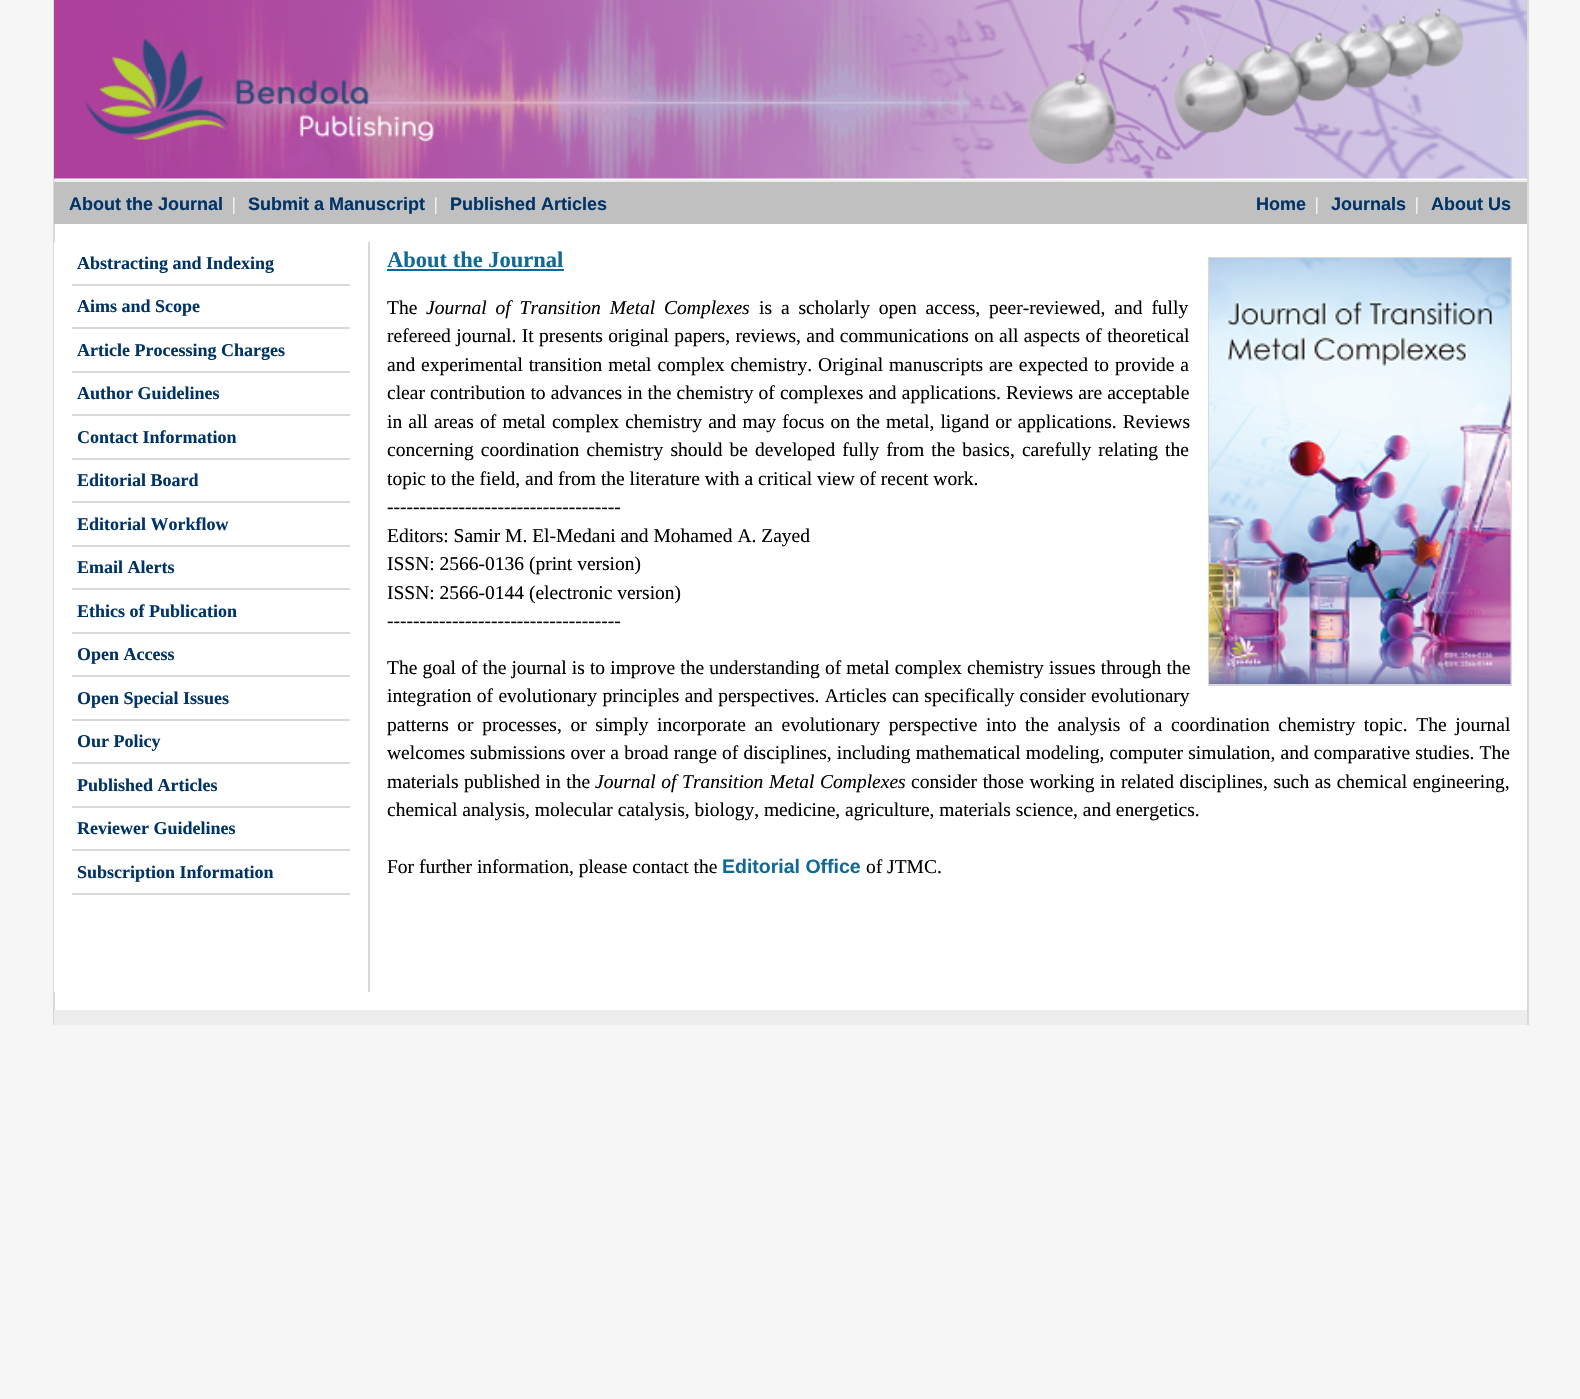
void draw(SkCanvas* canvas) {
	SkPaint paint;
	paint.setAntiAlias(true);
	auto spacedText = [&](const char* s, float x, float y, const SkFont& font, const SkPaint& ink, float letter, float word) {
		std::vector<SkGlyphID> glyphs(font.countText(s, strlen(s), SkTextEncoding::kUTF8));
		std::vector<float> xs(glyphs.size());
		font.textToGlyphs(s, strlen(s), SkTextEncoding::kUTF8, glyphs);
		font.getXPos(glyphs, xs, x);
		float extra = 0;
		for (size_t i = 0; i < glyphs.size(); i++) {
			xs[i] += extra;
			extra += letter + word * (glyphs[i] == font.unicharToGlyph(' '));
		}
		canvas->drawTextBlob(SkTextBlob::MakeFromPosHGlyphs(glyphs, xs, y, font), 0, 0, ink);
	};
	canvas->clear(0xfff6f6f6);
	paint.setColor(0xffffffff);
	canvas->drawRect(SkRect::MakeXYWH(55, 178, 1472, 832), paint);
	paint.setColor(0xffd9d9d9);
	canvas->drawRect(SkRect::MakeXYWH(1527, 0, 2, 1025), paint);
	canvas->drawRect(SkRect::MakeXYWH(53, 0, 2, 1025), paint);
	canvas->drawImageRect(SkImages::DeferredFromEncodedData(SkData::MakeFromFileName("img1.png")), SkRect::MakeXYWH(54, 0, 1473, 179), SkSamplingOptions());
	paint.setColor(0xffc0c0c0);
	canvas->drawRect(SkRect::MakeXYWH(54, 182, 1473, 42), paint);
	paint.setColor(0xffededed);
	canvas->drawRect(SkRect::MakeXYWH(54, 180, 1473, 2), paint);
	SkFont f1(fontMgr->matchFamilyStyle("Liberation Sans", SkFontStyle::Bold()), 18);
	f1.setSubpixel(true);
	paint.setColor(0xff003366);
	canvas->drawString("About the Journal", 69, 210, f1, paint);
	SkFont f2(fontMgr->matchFamilyStyle("Liberation Serif", SkFontStyle::Normal()), 18);
	f2.setSubpixel(true);
	paint.setColor(0xffffffff);
	canvas->drawString("|", 232, 210, f2, paint);
	paint.setColor(0xff003366);
	canvas->drawString("Submit a Manuscript", 248, 210, f1, paint);
	paint.setColor(0xffffffff);
	canvas->drawString("|", 434, 210, f2, paint);
	paint.setColor(0xff003366);
	canvas->drawString("Published Articles", 450, 210, f1, paint);
	canvas->drawString("Home", 1256, 210, f1, paint);
	paint.setColor(0xffffffff);
	canvas->drawString("|", 1315, 210, f2, paint);
	paint.setColor(0xff003366);
	canvas->drawString("Journals", 1331, 210, f1, paint);
	paint.setColor(0xffffffff);
	canvas->drawString("|", 1415, 210, f2, paint);
	paint.setColor(0xff003366);
	canvas->drawString("About Us", 1431, 210, f1, paint);
	paint.setColor(0xffffffff);
	canvas->drawRect(SkRect::MakeXYWH(54, 242, 1, 750), paint);
	paint.setColor(0xffd9d9d9);
	canvas->drawRect(SkRect::MakeXYWH(72, 284, 278, 2), paint);
	SkFont f3(fontMgr->matchFamilyStyle("Liberation Serif", SkFontStyle::Bold()), 18);
	f3.setSubpixel(true);
	paint.setColor(0xff003366);
	canvas->drawString("Abstracting and Indexing", 77, 269, f3, paint);
	paint.setColor(0xffd9d9d9);
	canvas->drawRect(SkRect::MakeXYWH(72, 327, 278, 2), paint);
	paint.setColor(0xff003366);
	canvas->drawString("Aims and Scope", 77, 312, f3, paint);
	paint.setColor(0xffd9d9d9);
	canvas->drawRect(SkRect::MakeXYWH(72, 371, 278, 2), paint);
	paint.setColor(0xff003366);
	canvas->drawString("Article Processing Charges", 77, 356, f3, paint);
	paint.setColor(0xffd9d9d9);
	canvas->drawRect(SkRect::MakeXYWH(72, 414, 278, 2), paint);
	paint.setColor(0xff003366);
	canvas->drawString("Author Guidelines", 77, 399, f3, paint);
	paint.setColor(0xffd9d9d9);
	canvas->drawRect(SkRect::MakeXYWH(72, 458, 278, 2), paint);
	paint.setColor(0xff003366);
	canvas->drawString("Contact Information", 77, 443, f3, paint);
	paint.setColor(0xffd9d9d9);
	canvas->drawRect(SkRect::MakeXYWH(72, 501, 278, 2), paint);
	paint.setColor(0xff003366);
	canvas->drawString("Editorial Board", 77, 486, f3, paint);
	paint.setColor(0xffd9d9d9);
	canvas->drawRect(SkRect::MakeXYWH(72, 545, 278, 2), paint);
	paint.setColor(0xff003366);
	canvas->drawString("Editorial Workflow", 77, 530, f3, paint);
	paint.setColor(0xffd9d9d9);
	canvas->drawRect(SkRect::MakeXYWH(72, 588, 278, 2), paint);
	paint.setColor(0xff003366);
	canvas->drawString("Email Alerts", 77, 573, f3, paint);
	paint.setColor(0xffd9d9d9);
	canvas->drawRect(SkRect::MakeXYWH(72, 632, 278, 2), paint);
	paint.setColor(0xff003366);
	canvas->drawString("Ethics of Publication", 77, 617, f3, paint);
	paint.setColor(0xffd9d9d9);
	canvas->drawRect(SkRect::MakeXYWH(72, 675, 278, 2), paint);
	paint.setColor(0xff003366);
	canvas->drawString("Open Access", 77, 660, f3, paint);
	paint.setColor(0xffd9d9d9);
	canvas->drawRect(SkRect::MakeXYWH(72, 719, 278, 2), paint);
	paint.setColor(0xff003366);
	canvas->drawString("Open Special Issues", 77, 704, f3, paint);
	paint.setColor(0xffd9d9d9);
	canvas->drawRect(SkRect::MakeXYWH(72, 762, 278, 2), paint);
	paint.setColor(0xff003366);
	canvas->drawString("Our Policy", 77, 747, f3, paint);
	paint.setColor(0xffd9d9d9);
	canvas->drawRect(SkRect::MakeXYWH(72, 806, 278, 2), paint);
	paint.setColor(0xff003366);
	canvas->drawString("Published Articles", 77, 791, f3, paint);
	paint.setColor(0xffd9d9d9);
	canvas->drawRect(SkRect::MakeXYWH(72, 849, 278, 2), paint);
	paint.setColor(0xff003366);
	canvas->drawString("Reviewer Guidelines", 77, 834, f3, paint);
	paint.setColor(0xffd9d9d9);
	canvas->drawRect(SkRect::MakeXYWH(72, 893, 278, 2), paint);
	paint.setColor(0xff003366);
	canvas->drawString("Subscription Information", 77, 878, f3, paint);
	paint.setColor(0xffd9d9d9);
	canvas->drawRect(SkRect::MakeXYWH(368, 242, 2, 750), paint);
	SkFont f4(fontMgr->matchFamilyStyle("Liberation Serif", SkFontStyle::Bold()), 22.5);
	f4.setSubpixel(true);
	paint.setColor(0xff106996);
	canvas->drawString("About the Journal", 387, 267, f4, paint);
	canvas->drawRect(SkRect::MakeXYWH(387, 269, 177, 2), paint);
	SkFont f5(fontMgr->matchFamilyStyle("Liberation Serif", SkFontStyle::Normal()), 19.5);
	f5.setSubpixel(true);
	paint.setColor(0xff000000);
	canvas->drawString("The", 387, 314, f5, paint);
	SkFont f6(fontMgr->matchFamilyStyle("Liberation Serif", SkFontStyle::Italic()), 19.5);
	f6.setSubpixel(true);
	spacedText("Journal of Transition Metal Complexes", 426, 314, f6, paint, 0, 4);
	spacedText("is a scholarly open access, peer-reviewed, and fully", 759, 314, f5, paint, 0, 4);
	paint.setStroke(true);
	paint.setStrokeWidth(2);
	paint.setColor(0xffd9d9d9);
	canvas->drawRect(SkRect::MakeXYWH(1209, 258, 302, 427), paint);
	canvas->drawImageRect(SkImages::DeferredFromEncodedData(SkData::MakeFromFileName("img2.png")), SkRect::MakeXYWH(1209, 258, 302, 426), SkSamplingOptions());
	paint.setStroke(false);
	paint.setColor(0xff000000);
	spacedText("refereed journal. It presents original papers, reviews, and communications on all aspects of theoretical", 387, 342, f5, paint, 0, 0.5);
	spacedText("and experimental transition metal complex chemistry. Original manuscripts are expected to provide a", 387, 371, f5, paint, 0, 1);
	spacedText("clear contribution to advances in the chemistry of complexes and applications. Reviews are acceptable", 387, 399, f5, paint, 0, 0.25);
	spacedText("in all areas of metal complex chemistry and may focus on the metal, ligand or applications. Reviews", 387, 428, f5, paint, 0, 1.25);
	spacedText("concerning coordination chemistry should be developed fully from the basics, carefully relating the", 387, 456, f5, paint, 0, 2.25);
	canvas->drawString("topic to the field, and from the literature with a critical view of recent work.", 387, 485, f5, paint);
	canvas->drawString("------------------------------------", 387, 513, f5, paint);
	canvas->drawString("Editors: Samir M. El-Medani and Mohamed A. Zayed", 387, 542, f5, paint);
	canvas->drawString("ISSN: 2566-0136 (print version)", 387, 570, f5, paint);
	canvas->drawString("ISSN: 2566-0144 (electronic version)", 387, 599, f5, paint);
	canvas->drawString("------------------------------------", 387, 627, f5, paint);
	spacedText("The goal of the journal is to improve the understanding of metal complex chemistry issues through the", 387, 674, f5, paint, 0, 0.25);
	spacedText("integration of evolutionary principles and perspectives. Articles can specifically consider evolutionary", 387, 702, f5, paint, 0, 0.5);
	spacedText("patterns or processes, or simply incorporate an evolutionary perspective into the analysis of a coordination chemistry topic. The journal", 387, 731, f5, paint, 0, 3.75);
	spacedText("welcomes submissions over a broad range of disciplines, including mathematical modeling, computer simulation, and comparative studies. The", 387, 759, f5, paint, 0, 0.25);
	spacedText("materials published in the", 387, 788, f5, paint, 0, 0.75);
	spacedText("Journal of Transition Metal Complexes", 595, 788, f6, paint, 0, 0.75);
	spacedText("consider those working in related disciplines, such as chemical engineering,", 911, 788, f5, paint, 0, 0.75);
	canvas->drawString("chemical analysis, molecular catalysis, biology, medicine, agriculture, materials science, and energetics.", 387, 816, f5, paint);
	canvas->drawString("For further information, please contact the", 387, 873, f5, paint);
	SkFont f7(fontMgr->matchFamilyStyle("Liberation Sans", SkFontStyle::Bold()), 19.5);
	f7.setSubpixel(true);
	paint.setColor(0xff106996);
	canvas->drawString("Editorial Office", 722, 873, f7, paint);
	paint.setColor(0xff000000);
	canvas->drawString("of JTMC.", 866, 873, f5, paint);
	paint.setColor(0xffededed);
	canvas->drawRect(SkRect::MakeXYWH(54, 1010, 1473, 15), paint);
}
